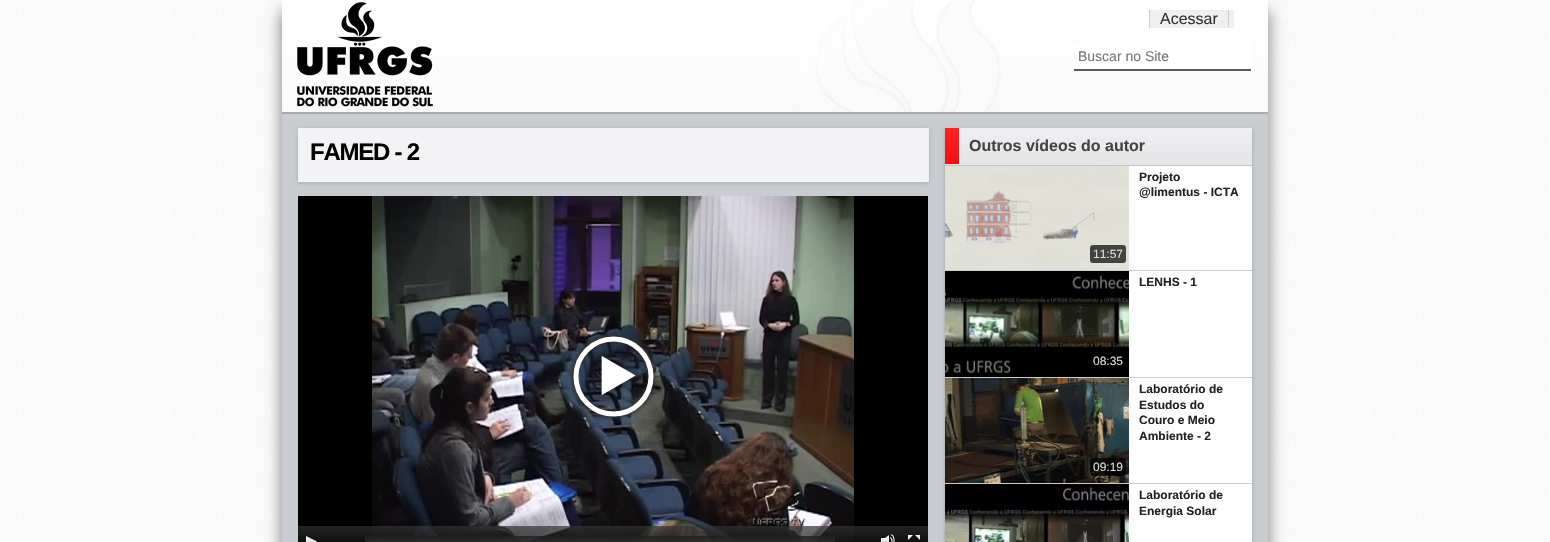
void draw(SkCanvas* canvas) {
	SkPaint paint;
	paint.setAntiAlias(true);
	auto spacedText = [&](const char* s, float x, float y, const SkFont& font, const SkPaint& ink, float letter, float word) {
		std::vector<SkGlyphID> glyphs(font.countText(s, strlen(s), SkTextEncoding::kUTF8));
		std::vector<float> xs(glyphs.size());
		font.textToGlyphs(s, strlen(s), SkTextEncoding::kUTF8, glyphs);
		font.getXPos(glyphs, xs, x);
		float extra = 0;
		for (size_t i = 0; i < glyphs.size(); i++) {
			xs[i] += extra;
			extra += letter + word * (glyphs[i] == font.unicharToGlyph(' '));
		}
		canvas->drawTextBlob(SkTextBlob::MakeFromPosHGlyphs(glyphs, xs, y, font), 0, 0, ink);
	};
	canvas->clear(0xffffffff);
	canvas->drawImageRect(SkImages::DeferredFromEncodedData(SkData::MakeFromFileName("img1.png")), SkRect::MakeXYWH(0, 0, 1550, 542), SkSamplingOptions());
	paint.setColor(0xff888888);
	paint.setMaskFilter(SkMaskFilter::MakeBlur(kNormal_SkBlurStyle, 7.5));
	canvas->drawRect(SkRect::MakeXYWH(281, 11, 988, 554), paint);
	paint.setMaskFilter(nullptr);
	canvas->drawImageRect(SkImages::DeferredFromEncodedData(SkData::MakeFromFileName("img2.png")), SkRect::MakeXYWH(282, 0, 986, 112), SkSamplingOptions());
	paint.setColor(0xffaaaaaa);
	canvas->drawRect(SkRect::MakeXYWH(282, 112, 986, 2), paint);
	canvas->drawImageRect(SkImages::DeferredFromEncodedData(SkData::MakeFromFileName("img3.png")), SkRect::MakeXYWH(297, 2, 136, 105), SkSamplingOptions());
	paint.setColor(0xffefeff2);
	canvas->drawRect(SkRect::MakeXYWH(1150, 10, 84, 18), paint);
	paint.setColor(0xffcccccc);
	canvas->drawRect(SkRect::MakeXYWH(1149, 10, 1, 18), paint);
	SkFont f1(fontMgr->matchFamilyStyle("Arimo", SkFontStyle::Normal()), 16);
	f1.setSubpixel(true);
	paint.setColor(0xff333333);
	canvas->drawString("Acessar", 1160, 24, f1, paint);
	paint.setColor(0xffcccccc);
	canvas->drawRect(SkRect::MakeXYWH(1228, 10, 1, 17), paint);
	paint.setColor(0xffffffff);
	canvas->drawRoundRect(SkRect::MakeXYWH(1072, 42, 180, 29), 3, 3, paint);
	paint.setColor(0xff595a5f);
	canvas->drawRect(SkRect::MakeXYWH(1074, 69, 177, 2), paint);
	SkFont f2(fontMgr->matchFamilyStyle("Liberation Sans", SkFontStyle::Normal()), 14);
	f2.setSubpixel(true);
	paint.setColor(0xff757575);
	canvas->drawString("Buscar no Site", 1078, 61, f2, paint);
	paint.setColor(0xffc9ccd1);
	canvas->drawRect(SkRect::MakeXYWH(282, 114, 986, 428), paint);
	paint.setColor(0x2b000000);
	paint.setMaskFilter(SkMaskFilter::MakeBlur(kNormal_SkBlurStyle, 2));
	canvas->drawRect(SkRect::MakeXYWH(298, 129, 631, 54), paint);
	paint.setMaskFilter(nullptr);
	paint.setColor(0xfff3f3f5);
	canvas->drawRect(SkRect::MakeXYWH(298, 128, 631, 54), paint);
	SkFont f3(fontMgr->matchFamilyStyle("Liberation Sans", SkFontStyle::Bold()), 24);
	f3.setSubpixel(true);
	paint.setColor(0xff000000);
	spacedText("FAMED - 2", 310, 160, f3, paint, -1.25, 0);
	canvas->drawRect(SkRect::MakeXYWH(298, 196, 630, 346), paint);
	canvas->drawImageRect(SkImages::DeferredFromEncodedData(SkData::MakeFromFileName("img4.png")), SkRect::MakeXYWH(372, 196, 482, 346), SkSamplingOptions());
	canvas->drawImageRect(SkImages::DeferredFromEncodedData(SkData::MakeFromFileName("img5.png")), SkRect::MakeXYWH(568, 332, 90, 88), SkSamplingOptions());
	{
		const SkColor colors[] = {0xb3323232, 0xb3000000};
		const float stops[] = {0, 1};
		const SkPoint ends[] = {{613, 526}, {613, 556}};
		paint.setShader(SkGradientShader::MakeLinear(ends, colors, stops, 2, SkTileMode::kClamp));
		paint.setAlpha(255);
	}
	canvas->drawRect(SkRect::MakeXYWH(298, 526, 630, 16), paint);
	canvas->drawImageRect(SkImages::DeferredFromEncodedData(SkData::MakeFromFileName("img6.png")), SkRect::MakeXYWH(306, 536, 11, 6), SkSamplingOptions());
	{
		const SkColor colors[] = {0xcc1e1e1e, 0xcc3c3c3c};
		const float stops[] = {0, 1};
		const SkPoint ends[] = {{600, 536}, {600, 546}};
		paint.setShader(SkGradientShader::MakeLinear(ends, colors, stops, 2, SkTileMode::kClamp));
		paint.setAlpha(255);
	}
	canvas->drawRoundRect(SkRect::MakeXYWH(365, 536, 470, 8), 2, 2, paint);
	canvas->drawImageRect(SkImages::DeferredFromEncodedData(SkData::MakeFromFileName("img7.png")), SkRect::MakeXYWH(881, 534, 14, 8), SkSamplingOptions());
	canvas->drawImageRect(SkImages::DeferredFromEncodedData(SkData::MakeFromFileName("img8.png")), SkRect::MakeXYWH(908, 535, 12, 5), SkSamplingOptions());
	paint.setShader(nullptr);
	paint.setColor(0x36000000);
	paint.setMaskFilter(SkMaskFilter::MakeBlur(kNormal_SkBlurStyle, 2));
	canvas->drawRect(SkRect::MakeXYWH(945, 130, 307, 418), paint);
	paint.setMaskFilter(nullptr);
	{
		const SkColor colors[] = {0xffefeff2, 0xffe5e5e7};
		const float stops[] = {0, 1};
		const SkPoint ends[] = {{1099, 128}, {1099, 165}};
		paint.setShader(SkGradientShader::MakeLinear(ends, colors, stops, 2, SkTileMode::kClamp));
		paint.setAlpha(255);
	}
	canvas->drawRect(SkRect::MakeXYWH(945, 128, 307, 37), paint);
	paint.setShader(nullptr);
	paint.setColor(0xffc3c3c3);
	canvas->drawRect(SkRect::MakeXYWH(945, 165, 307, 1), paint);
	{
		const SkColor colors[] = {0xffff2222, 0xffee1111};
		const float stops[] = {0, 1};
		const SkPoint ends[] = {{952, 128}, {952, 164}};
		paint.setShader(SkGradientShader::MakeLinear(ends, colors, stops, 2, SkTileMode::kClamp));
		paint.setAlpha(255);
	}
	canvas->drawRect(SkRect::MakeXYWH(945, 128, 14, 36), paint);
	SkFont f4(fontMgr->matchFamilyStyle("Liberation Sans", SkFontStyle::Bold()), 16);
	f4.setSubpixel(true);
	paint.setShader(nullptr);
	paint.setColor(0xff444444);
	canvas->drawString("Outros vídeos do autor", 969, 151, f4, paint);
	paint.setColor(0xfffdfdfe);
	canvas->drawRect(SkRect::MakeXYWH(1129, 166, 123, 376), paint);
	paint.setColor(0xffcccccc);
	canvas->drawRect(SkRect::MakeXYWH(945, 270, 307, 1), paint);
	canvas->drawImageRect(SkImages::DeferredFromEncodedData(SkData::MakeFromFileName("img9.png")), SkRect::MakeXYWH(945, 166, 184, 104), SkSamplingOptions());
	SkFont f5(fontMgr->matchFamilyStyle("Liberation Sans", SkFontStyle::Bold()), 12);
	f5.setSubpixel(true);
	paint.setColor(0xff222222);
	canvas->drawString("Projeto", 1139, 181, f5, paint);
	canvas->drawString("@limentus - ICTA", 1139, 196, f5, paint);
	paint.setColor(0xb3000000);
	canvas->drawRoundRect(SkRect::MakeXYWH(1090, 245, 36, 18), 3, 3, paint);
	SkFont f6(fontMgr->matchFamilyStyle("Arimo", SkFontStyle::Normal()), 12);
	f6.setSubpixel(true);
	paint.setColor(0xffdfdfe1);
	canvas->drawString("11:57", 1093, 258, f6, paint);
	paint.setColor(0xffcccccc);
	canvas->drawRect(SkRect::MakeXYWH(945, 377, 307, 1), paint);
	canvas->drawImageRect(SkImages::DeferredFromEncodedData(SkData::MakeFromFileName("img10.png")), SkRect::MakeXYWH(945, 271, 184, 106), SkSamplingOptions());
	paint.setColor(0xff222222);
	canvas->drawString("LENHS - 1", 1139, 286, f5, paint);
	paint.setColor(0xffdfdfe1);
	canvas->drawString("08:35", 1093, 365, f6, paint);
	paint.setColor(0xffcccccc);
	canvas->drawRect(SkRect::MakeXYWH(945, 483, 307, 1), paint);
	canvas->drawImageRect(SkImages::DeferredFromEncodedData(SkData::MakeFromFileName("img11.png")), SkRect::MakeXYWH(945, 378, 184, 105), SkSamplingOptions());
	paint.setColor(0xff222222);
	canvas->drawString("Laboratório de", 1139, 393, f5, paint);
	canvas->drawString("Estudos do", 1139, 409, f5, paint);
	canvas->drawString("Couro e Meio", 1139, 424, f5, paint);
	canvas->drawString("Ambiente - 2", 1139, 440, f5, paint);
	paint.setColor(0xb3000000);
	canvas->drawRoundRect(SkRect::MakeXYWH(1090, 458, 36, 18), 3, 3, paint);
	paint.setColor(0xffdfdfe1);
	canvas->drawString("09:19", 1093, 471, f6, paint);
	canvas->drawImageRect(SkImages::DeferredFromEncodedData(SkData::MakeFromFileName("img12.png")), SkRect::MakeXYWH(945, 484, 184, 58), SkSamplingOptions());
	paint.setColor(0xff222222);
	canvas->drawString("Laboratório de", 1139, 499, f5, paint);
	canvas->drawString("Energia Solar", 1139, 515, f5, paint);
}
